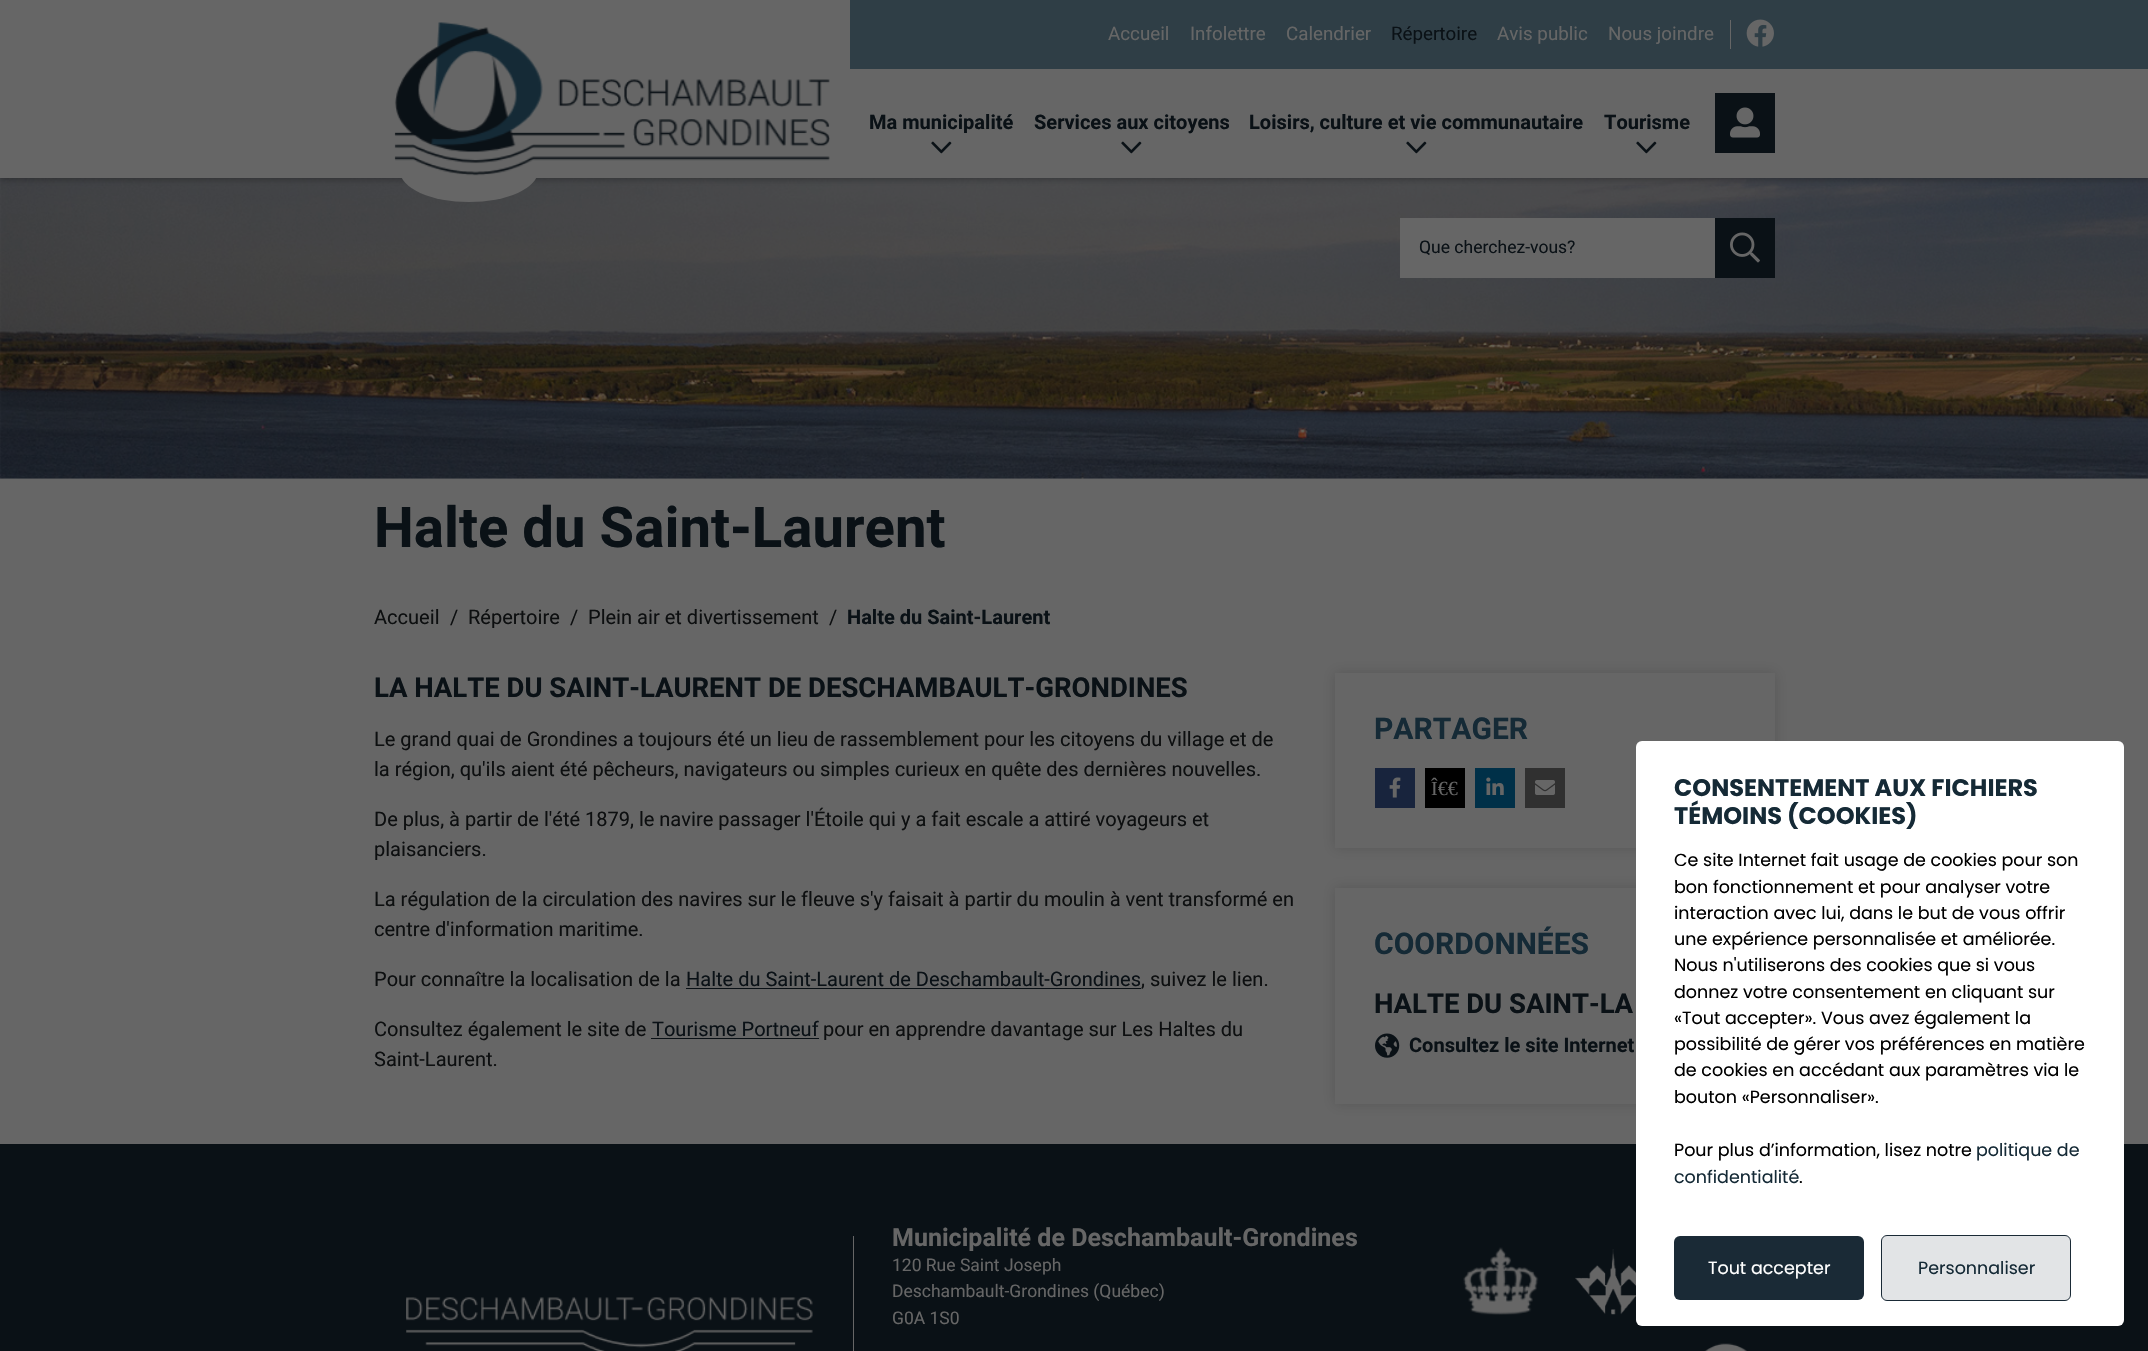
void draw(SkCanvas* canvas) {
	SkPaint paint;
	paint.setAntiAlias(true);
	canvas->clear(0xff666666);
	canvas->drawImageRect(SkImages::DeferredFromEncodedData(SkData::MakeFromFileName("img6.png")), SkRect::MakeXYWH(0, 178, 2148, 301), SkSamplingOptions());
	paint.setColor(0x40000000);
	paint.setMaskFilter(SkMaskFilter::MakeBlur(kNormal_SkBlurStyle, 3));
	canvas->drawRect(SkRect::MakeXYWH(0, 3, 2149, 177), paint);
	paint.setMaskFilter(nullptr);
	paint.setColor(0xff666666);
	canvas->drawRect(SkRect::MakeXYWH(850, 69, 1298, 109), paint);
	canvas->drawRect(SkRect::MakeXYWH(0, 0, 850, 178), paint);
	canvas->drawOval(SkRect::MakeXYWH(400, 140, 138, 62), paint);
	canvas->drawImageRect(SkImages::DeferredFromEncodedData(SkData::MakeFromFileName("img1.png")), SkRect::MakeXYWH(394, 22, 436, 154), SkSamplingOptions());
	paint.setColor(0xff2f3e46);
	canvas->drawRect(SkRect::MakeXYWH(850, 0, 1298, 69), paint);
	SkFont f1(fontMgr->matchFamilyStyle("Heebo", SkFontStyle::Normal()), 18.75);
	f1.setSubpixel(true);
	paint.setColor(0xff666666);
	canvas->drawString("Accueil", 1108, 40, f1, paint);
	canvas->drawString("Infolettre", 1190, 40, f1, paint);
	canvas->drawString("Calendrier", 1286, 40, f1, paint);
	paint.setColor(0xff0a1116);
	canvas->drawString("Répertoire", 1391, 40, f1, paint);
	paint.setColor(0xff666666);
	canvas->drawString("Avis public", 1497, 40, f1, paint);
	canvas->drawString("Nous joindre", 1608, 40, f1, paint);
	canvas->drawRect(SkRect::MakeXYWH(1730, 20, 1, 29), paint);
	canvas->drawImageRect(SkImages::DeferredFromEncodedData(SkData::MakeFromFileName("img2.png")), SkRect::MakeXYWH(1746, 19, 28, 28), SkSamplingOptions());
	SkFont f2(fontMgr->matchFamilyStyle("Heebo", SkFontStyle::Bold()), 20);
	f2.setSubpixel(true);
	paint.setColor(0xff0a1116);
	canvas->drawString("Ma municipalité", 869, 129, f2, paint);
	canvas->drawImageRect(SkImages::DeferredFromEncodedData(SkData::MakeFromFileName("img3.png")), SkRect::MakeXYWH(931, 141, 21, 13), SkSamplingOptions());
	canvas->drawString("Services aux citoyens", 1034, 129, f2, paint);
	canvas->drawImageRect(SkImages::DeferredFromEncodedData(SkData::MakeFromFileName("img3.png")), SkRect::MakeXYWH(1121, 141, 21, 13), SkSamplingOptions());
	canvas->drawString("Loisirs, culture et vie communautaire", 1249, 129, f2, paint);
	canvas->drawImageRect(SkImages::DeferredFromEncodedData(SkData::MakeFromFileName("img3.png")), SkRect::MakeXYWH(1406, 141, 21, 13), SkSamplingOptions());
	canvas->drawString("Tourisme", 1604, 129, f2, paint);
	canvas->drawImageRect(SkImages::DeferredFromEncodedData(SkData::MakeFromFileName("img3.png")), SkRect::MakeXYWH(1636, 141, 21, 13), SkSamplingOptions());
	canvas->drawRect(SkRect::MakeXYWH(1715, 93, 60, 60), paint);
	canvas->drawImageRect(SkImages::DeferredFromEncodedData(SkData::MakeFromFileName("img4.png")), SkRect::MakeXYWH(1730, 107, 30, 31), SkSamplingOptions());
	paint.setColor(0xff666666);
	canvas->drawRect(SkRect::MakeXYWH(1400, 218, 315, 60), paint);
	SkFont f3(fontMgr->matchFamilyStyle("Heebo", SkFontStyle::Normal()), 17.5);
	f3.setSubpixel(true);
	paint.setColor(0xff0a1116);
	canvas->drawString("Que cherchez-vous?", 1419, 253, f3, paint);
	canvas->drawRect(SkRect::MakeXYWH(1715, 218, 60, 60), paint);
	canvas->drawImageRect(SkImages::DeferredFromEncodedData(SkData::MakeFromFileName("img5.png")), SkRect::MakeXYWH(1730, 232, 30, 31), SkSamplingOptions());
	SkFont f4(fontMgr->matchFamilyStyle("Heebo", SkFontStyle::Bold()), 56.25);
	f4.setSubpixel(true);
	canvas->drawString("Halte du Saint-Laurent", 374, 547, f4, paint);
	SkFont f5(fontMgr->matchFamilyStyle("Heebo", SkFontStyle::Normal()), 20);
	f5.setSubpixel(true);
	paint.setColor(0xff0d0f10);
	canvas->drawString("Accueil", 374, 624, f5, paint);
	canvas->drawString("/", 450, 624, f5, paint);
	canvas->drawString("Répertoire", 468, 624, f5, paint);
	canvas->drawString("/", 570, 624, f5, paint);
	canvas->drawString("Plein air et divertissement", 588, 624, f5, paint);
	canvas->drawString("/", 829, 624, f5, paint);
	paint.setColor(0xff0a1116);
	canvas->drawString("Halte du Saint-Laurent", 847, 624, f2, paint);
	SkFont f6(fontMgr->matchFamilyStyle("Heebo", SkFontStyle::Bold()), 27.5);
	f6.setSubpixel(true);
	canvas->drawString("LA HALTE DU SAINT-LAURENT DE DESCHAMBAULT-GRONDINES", 374, 697, f6, paint);
	paint.setColor(0xff0d0f10);
	canvas->drawString("Le grand quai de Grondines a toujours été un lieu de rassemblement pour les citoyens du village et de", 374, 746, f5, paint);
	canvas->drawString("la région, qu'ils aient été pêcheurs, navigateurs ou simples curieux en quête des dernières nouvelles.", 374, 776, f5, paint);
	canvas->drawString("De plus, à partir de l'été 1879, le navire passager l'Étoile qui y a fait escale a attiré voyageurs et", 374, 826, f5, paint);
	canvas->drawString("plaisanciers.", 374, 856, f5, paint);
	canvas->drawString("La régulation de la circulation des navires sur le fleuve s'y faisait à partir du moulin à vent transformé en", 374, 906, f5, paint);
	canvas->drawString("centre d'information maritime.", 374, 936, f5, paint);
	canvas->drawString("Pour connaître la localisation de la", 374, 986, f5, paint);
	paint.setColor(0xff0a1116);
	canvas->drawString("Halte du Saint-Laurent de Deschambault-Grondines", 686, 986, f5, paint);
	canvas->drawRect(SkRect::MakeXYWH(686, 988, 455, 1), paint);
	paint.setColor(0xff0d0f10);
	canvas->drawString(", suivez le lien.", 1141, 986, f5, paint);
	canvas->drawString("Consultez également le site de", 374, 1036, f5, paint);
	paint.setColor(0xff0a1116);
	canvas->drawString("Tourisme Portneuf", 652, 1036, f5, paint);
	canvas->drawRect(SkRect::MakeXYWH(651, 1038, 168, 1), paint);
	paint.setColor(0xff0d0f10);
	canvas->drawString("pour en apprendre davantage sur Les Haltes du", 823, 1036, f5, paint);
	canvas->drawString("Saint-Laurent.", 374, 1066, f5, paint);
	paint.setColor(0x26000000);
	paint.setMaskFilter(SkMaskFilter::MakeBlur(kNormal_SkBlurStyle, 6));
	canvas->drawRect(SkRect::MakeXYWH(1335, 673, 440, 175), paint);
	paint.setMaskFilter(nullptr);
	paint.setColor(0xff666666);
	canvas->drawRect(SkRect::MakeXYWH(1335, 673, 440, 175), paint);
	SkFont f7(fontMgr->matchFamilyStyle("Heebo", SkFontStyle::Bold()), 30);
	f7.setSubpixel(true);
	paint.setColor(0xff152a36);
	canvas->drawString("PARTAGER", 1374, 739, f7, paint);
	paint.setColor(0xff18243d);
	canvas->drawRect(SkRect::MakeXYWH(1375, 768, 40, 40), paint);
	canvas->drawImageRect(SkImages::DeferredFromEncodedData(SkData::MakeFromFileName("img7.png")), SkRect::MakeXYWH(1389, 777, 12, 21), SkSamplingOptions());
	paint.setColor(0xff000000);
	canvas->drawRect(SkRect::MakeXYWH(1425, 768, 40, 40), paint);
	SkFont f8(fontMgr->matchFamilyStyle("Liberation Serif", SkFontStyle::Normal()), 20);
	f8.setSubpixel(true);
	paint.setColor(0xff666666);
	canvas->drawString("Î€€", 1431, 795, f8, paint);
	paint.setColor(0xff003048);
	canvas->drawRect(SkRect::MakeXYWH(1475, 768, 40, 40), paint);
	canvas->drawImageRect(SkImages::DeferredFromEncodedData(SkData::MakeFromFileName("img8.png")), SkRect::MakeXYWH(1486, 777, 18, 18), SkSamplingOptions());
	paint.setColor(0xff303030);
	canvas->drawRect(SkRect::MakeXYWH(1525, 768, 40, 40), paint);
	canvas->drawImageRect(SkImages::DeferredFromEncodedData(SkData::MakeFromFileName("img9.png")), SkRect::MakeXYWH(1535, 780, 20, 15), SkSamplingOptions());
	paint.setColor(0x26000000);
	paint.setMaskFilter(SkMaskFilter::MakeBlur(kNormal_SkBlurStyle, 6));
	canvas->drawRect(SkRect::MakeXYWH(1335, 888, 440, 216), paint);
	paint.setMaskFilter(nullptr);
	paint.setColor(0xff666666);
	canvas->drawRect(SkRect::MakeXYWH(1335, 888, 301, 216), paint);
	paint.setColor(0xff152a36);
	canvas->drawString("COORDONNÉES", 1374, 954, f7, paint);
	paint.setColor(0xff0a1116);
	canvas->drawString("HALTE DU SAINT-LA", 1374, 1013, f6, paint);
	canvas->drawImageRect(SkImages::DeferredFromEncodedData(SkData::MakeFromFileName("img10.png")), SkRect::MakeXYWH(1375, 1033, 25, 25), SkSamplingOptions());
	canvas->drawString("Consultez le site Internet", 1409, 1052, f2, paint);
	canvas->drawRect(SkRect::MakeXYWH(0, 1144, 2148, 207), paint);
	paint.setColor(0xffffffff);
	canvas->drawRoundRect(SkRect::MakeXYWH(1636, 741, 488, 585), 6, 6, paint);
	SkFont f9(fontMgr->matchFamilyStyle("Poppins", SkFontStyle::Bold()), 24);
	f9.setSubpixel(true);
	paint.setColor(0xff152a36);
	canvas->drawString("CONSENTEMENT AUX FICHIERS", 1674, 796, f9, paint);
	canvas->drawString("TÉMOINS (COOKIES)", 1674, 824, f9, paint);
	SkFont f10(fontMgr->matchFamilyStyle("Poppins", SkFontStyle::Normal()), 17.5);
	f10.setSubpixel(true);
	paint.setColor(0xff000000);
	canvas->drawString("Ce site Internet fait usage de cookies pour son", 1674, 866, f10, paint);
	canvas->drawString("bon fonctionnement et pour analyser votre", 1674, 893, f10, paint);
	canvas->drawString("interaction avec lui, dans le but de vous offrir", 1674, 919, f10, paint);
	canvas->drawString("une expérience personnalisée et améliorée.", 1674, 945, f10, paint);
	canvas->drawString("Nous n'utiliserons des cookies que si vous", 1674, 971, f10, paint);
	canvas->drawString("donnez votre consentement en cliquant sur", 1674, 998, f10, paint);
	canvas->drawString("«Tout accepter». Vous avez également la", 1674, 1024, f10, paint);
	canvas->drawString("possibilité de gérer vos préférences en matière", 1674, 1050, f10, paint);
	canvas->drawString("de cookies en accédant aux paramètres via le", 1674, 1076, f10, paint);
	canvas->drawString("bouton «Personnaliser».", 1674, 1103, f10, paint);
	canvas->drawString("Pour plus d’information, lisez notre", 1674, 1156, f10, paint);
	paint.setColor(0xff152a36);
	canvas->drawString("politique de", 1976, 1156, f10, paint);
	canvas->drawString("confidentialité", 1674, 1183, f10, paint);
	paint.setColor(0xff000000);
	canvas->drawString(".", 1799, 1183, f10, paint);
	paint.setColor(0xff1a2a36);
	canvas->drawRoundRect(SkRect::MakeXYWH(1674, 1236, 190, 64), 6, 6, paint);
	paint.setColor(0xffffffff);
	canvas->drawString("Tout accepter", 1708, 1274, f10, paint);
	paint.setColor(0xffe2e4e6);
	canvas->drawRoundRect(SkRect::MakeXYWH(1881.5, 1235.5, 189, 65), 5.5, 5.5, paint);
	paint.setStroke(true);
	paint.setStrokeWidth(1);
	paint.setColor(0xff1a2a36);
	canvas->drawRoundRect(SkRect::MakeXYWH(1881.5, 1235.5, 189, 65), 5.5, 5.5, paint);
	paint.setStroke(false);
	paint.setColor(0xff152a36);
	canvas->drawString("Personnaliser", 1918, 1274, f10, paint);
	canvas->drawImageRect(SkImages::DeferredFromEncodedData(SkData::MakeFromFileName("img11.png")), SkRect::MakeXYWH(406, 1297, 407, 54), SkSamplingOptions());
	paint.setColor(0xff666666);
	canvas->drawRect(SkRect::MakeXYWH(853, 1236, 1, 115), paint);
	SkFont f11(fontMgr->matchFamilyStyle("Heebo", SkFontStyle::Bold()), 25);
	f11.setSubpixel(true);
	canvas->drawString("Municipalité de Deschambault-Grondines", 892, 1246, f11, paint);
	canvas->drawString("120 Rue Saint Joseph", 892, 1271, f3, paint);
	canvas->drawString("Deschambault-Grondines (Québec)", 892, 1297, f3, paint);
	canvas->drawString("G0A 1S0", 892, 1324, f3, paint);
	canvas->drawImageRect(SkImages::DeferredFromEncodedData(SkData::MakeFromFileName("img12.png")), SkRect::MakeXYWH(1463, 1247, 76, 68), SkSamplingOptions());
	canvas->drawImageRect(SkImages::DeferredFromEncodedData(SkData::MakeFromFileName("img13.png")), SkRect::MakeXYWH(1575, 1249, 61, 66), SkSamplingOptions());
	canvas->drawImageRect(SkImages::DeferredFromEncodedData(SkData::MakeFromFileName("img14.png")), SkRect::MakeXYWH(1704, 1343, 43, 8), SkSamplingOptions());
}
